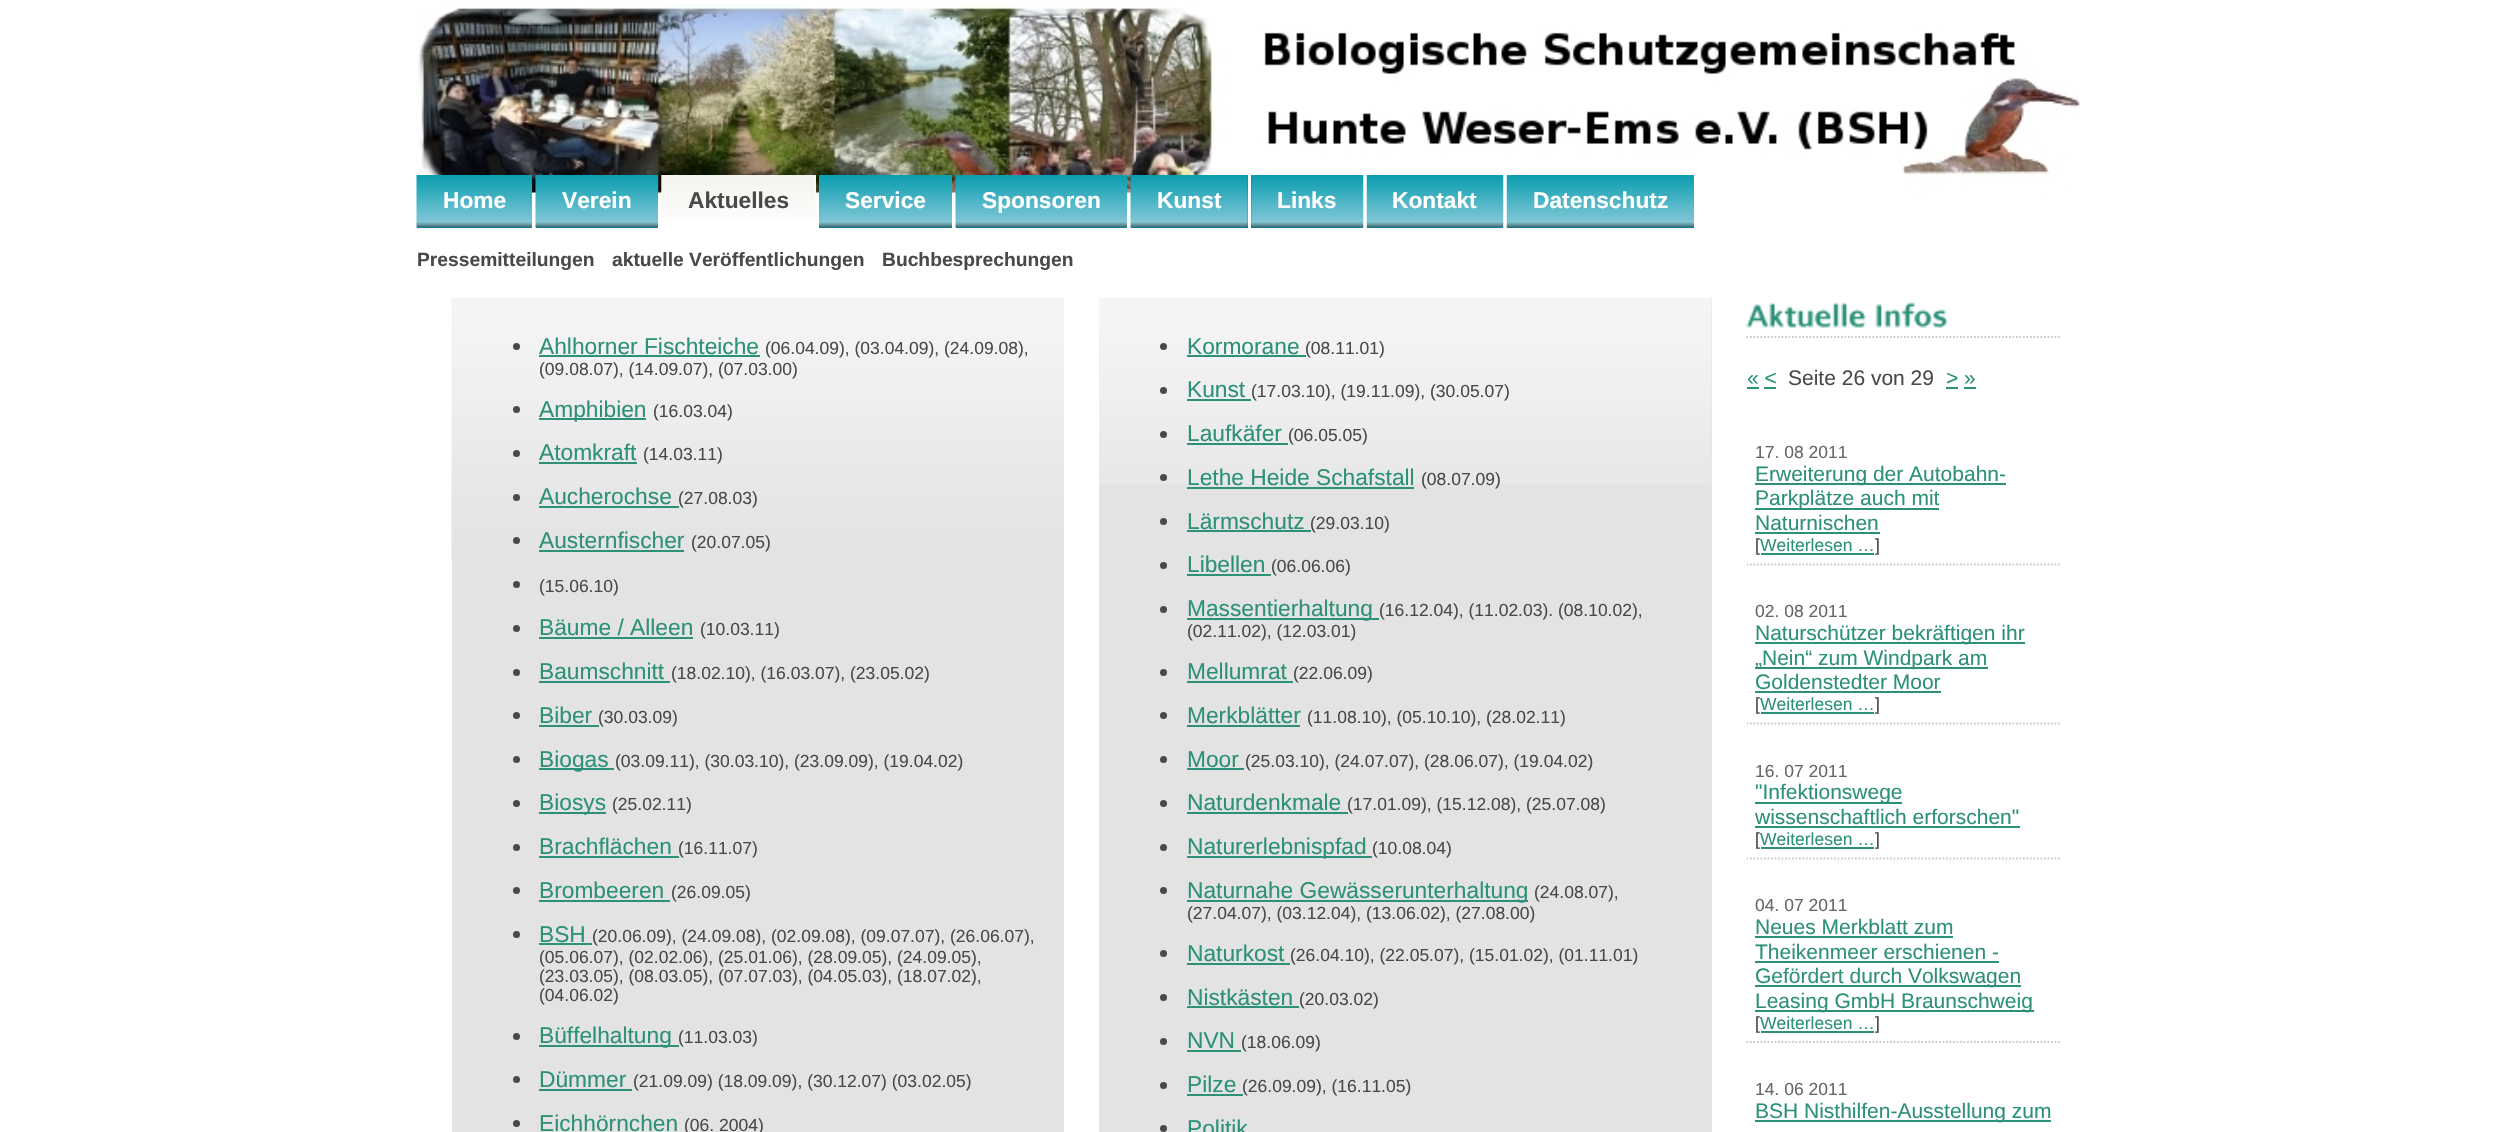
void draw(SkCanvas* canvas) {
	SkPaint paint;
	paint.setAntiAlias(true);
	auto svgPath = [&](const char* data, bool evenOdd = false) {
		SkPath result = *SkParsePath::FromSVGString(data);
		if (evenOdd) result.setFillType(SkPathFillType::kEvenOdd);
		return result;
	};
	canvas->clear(0xffffffff);
	canvas->drawImageRect(SkImages::DeferredFromEncodedData(SkData::MakeFromFileName("img1.png")), SkRect::MakeXYWH(417, 4, 1663, 193), SkSamplingOptions());
	paint.setColor(0xff006e8d);
	canvas->drawRect(SkRect::MakeXYWH(417, 227, 115, 1), paint);
	canvas->drawImageRect(SkImages::DeferredFromEncodedData(SkData::MakeFromFileName("img2.png")), SkRect::MakeXYWH(416, 175, 116, 53), SkSamplingOptions());
	SkFont f1(fontMgr->matchFamilyStyle("Liberation Sans", SkFontStyle::Bold()), 22.75);
	f1.setSubpixel(true);
	paint.setColor(0xffffffff);
	canvas->drawString("Home", 443, 208, f1, paint);
	paint.setColor(0xff006e8d);
	canvas->drawRect(SkRect::MakeXYWH(536, 227, 122, 1), paint);
	canvas->drawImageRect(SkImages::DeferredFromEncodedData(SkData::MakeFromFileName("img3.png")), SkRect::MakeXYWH(535, 175, 123, 53), SkSamplingOptions());
	paint.setColor(0xffffffff);
	canvas->drawString("Verein", 562, 208, f1, paint);
	canvas->drawImageRect(SkImages::DeferredFromEncodedData(SkData::MakeFromFileName("img4.png")), SkRect::MakeXYWH(661, 175, 1, 43), SkSamplingOptions());
	canvas->drawRect(SkRect::MakeXYWH(662, 175, 154, 22), paint);
	canvas->drawImageRect(SkImages::DeferredFromEncodedData(SkData::MakeFromFileName("img5.png")), SkRect::MakeXYWH(661, 175, 155, 43), SkSamplingOptions());
	paint.setColor(0xff494949);
	canvas->drawString("Aktuelles", 688, 208, f1, paint);
	paint.setColor(0xff006e8d);
	canvas->drawRect(SkRect::MakeXYWH(819, 227, 133, 1), paint);
	canvas->drawImageRect(SkImages::DeferredFromEncodedData(SkData::MakeFromFileName("img6.png")), SkRect::MakeXYWH(819, 175, 133, 53), SkSamplingOptions());
	paint.setColor(0xffffffff);
	canvas->drawString("Service", 845, 208, f1, paint);
	paint.setColor(0xff006e8d);
	canvas->drawRect(SkRect::MakeXYWH(956, 227, 171, 1), paint);
	canvas->drawImageRect(SkImages::DeferredFromEncodedData(SkData::MakeFromFileName("img7.png")), SkRect::MakeXYWH(955, 175, 172, 53), SkSamplingOptions());
	paint.setColor(0xffffffff);
	canvas->drawString("Sponsoren", 982, 208, f1, paint);
	paint.setColor(0xff006e8d);
	canvas->drawRect(SkRect::MakeXYWH(1131, 175, 117, 53), paint);
	canvas->drawImageRect(SkImages::DeferredFromEncodedData(SkData::MakeFromFileName("img8.png")), SkRect::MakeXYWH(1130, 175, 118, 53), SkSamplingOptions());
	paint.setColor(0xffffffff);
	canvas->drawString("Kunst", 1157, 208, f1, paint);
	paint.setColor(0xff006e8d);
	canvas->drawRect(SkRect::MakeXYWH(1251, 175, 112, 53), paint);
	canvas->drawImageRect(SkImages::DeferredFromEncodedData(SkData::MakeFromFileName("img9.png")), SkRect::MakeXYWH(1251, 175, 113, 53), SkSamplingOptions());
	paint.setColor(0xffffffff);
	canvas->drawString("Links", 1277, 208, f1, paint);
	paint.setColor(0xff006e8d);
	canvas->drawRect(SkRect::MakeXYWH(1367, 227, 136, 1), paint);
	canvas->drawImageRect(SkImages::DeferredFromEncodedData(SkData::MakeFromFileName("img10.png")), SkRect::MakeXYWH(1366, 175, 138, 53), SkSamplingOptions());
	paint.setColor(0xffffffff);
	canvas->drawString("Kontakt", 1392, 208, f1, paint);
	paint.setColor(0xff006e8d);
	canvas->drawRect(SkRect::MakeXYWH(1507, 227, 187, 1), paint);
	canvas->drawImageRect(SkImages::DeferredFromEncodedData(SkData::MakeFromFileName("img11.png")), SkRect::MakeXYWH(1506, 175, 188, 53), SkSamplingOptions());
	paint.setColor(0xffffffff);
	canvas->drawString("Datenschutz", 1533, 208, f1, paint);
	SkFont f2(fontMgr->matchFamilyStyle("Liberation Sans", SkFontStyle::Bold()), 19.25);
	f2.setSubpixel(true);
	paint.setColor(0xff494949);
	canvas->drawString("Pressemitteilungen", 417, 266, f2, paint);
	canvas->drawString("aktuelle Veröffentlichungen", 612, 266, f2, paint);
	canvas->drawString("Buchbesprechungen", 882, 266, f2, paint);
	paint.setColor(0xffe3e3e3);
	canvas->drawRect(SkRect::MakeXYWH(452, 560, 612, 572), paint);
	canvas->drawImageRect(SkImages::DeferredFromEncodedData(SkData::MakeFromFileName("img12.png")), SkRect::MakeXYWH(451, 297, 613, 263), SkSamplingOptions());
	paint.setColor(0xff494949);
	canvas->drawCircle(516.5, 346.5, 3.5, paint);
	SkFont f3(fontMgr->matchFamilyStyle("Liberation Sans", SkFontStyle::Normal()), 22.75);
	f3.setSubpixel(true);
	paint.setColor(0xff2c9178);
	canvas->drawString("Ahlhorner Fischteiche", 539, 354, f3, paint);
	SkFont f4(fontMgr->matchFamilyStyle("Liberation Sans", SkFontStyle::Normal()), 17.5);
	f4.setSubpixel(true);
	paint.setColor(0xff494949);
	canvas->drawString("(06.04.09), (03.04.09), (24.09.08),", 765, 354, f4, paint);
	paint.setColor(0xff2c9178);
	canvas->drawRect(SkRect::MakeXYWH(539, 355, 221, 2), paint);
	paint.setColor(0xff494949);
	canvas->drawString("(09.08.07), (14.09.07), (07.03.00)", 539, 375, f4, paint);
	canvas->drawCircle(516.5, 409.5, 3.5, paint);
	paint.setColor(0xff2c9178);
	canvas->drawRect(SkRect::MakeXYWH(539, 418, 107, 2), paint);
	canvas->drawString("Amphibien", 539, 417, f3, paint);
	paint.setColor(0xff494949);
	canvas->drawString("(16.03.04)", 653, 417, f4, paint);
	canvas->drawCircle(516.5, 453.5, 3.5, paint);
	paint.setColor(0xff2c9178);
	canvas->drawString("Atomkraft", 539, 460, f3, paint);
	paint.setColor(0xff494949);
	canvas->drawString("(14.03.11)", 643, 460, f4, paint);
	paint.setColor(0xff2c9178);
	canvas->drawRect(SkRect::MakeXYWH(539, 462, 98, 2), paint);
	paint.setColor(0xff494949);
	canvas->drawCircle(516.5, 497.5, 3.5, paint);
	paint.setColor(0xff2c9178);
	canvas->drawString("Aucherochse", 539, 504, f3, paint);
	paint.setColor(0xff494949);
	canvas->drawString("(27.08.03)", 678, 504, f4, paint);
	paint.setColor(0xff2c9178);
	canvas->drawRect(SkRect::MakeXYWH(539, 506, 140, 2), paint);
	paint.setColor(0xff494949);
	canvas->drawCircle(516.5, 540.5, 3.5, paint);
	paint.setColor(0xff2c9178);
	canvas->drawString("Austernfischer", 539, 548, f3, paint);
	canvas->drawRect(SkRect::MakeXYWH(539, 550, 145, 2), paint);
	paint.setColor(0xff494949);
	canvas->drawString("(20.07.05)", 691, 548, f4, paint);
	canvas->drawCircle(516.5, 584.5, 3.5, paint);
	canvas->drawString("(15.06.10)", 539, 592, f4, paint);
	canvas->drawCircle(516.5, 628.5, 3.5, paint);
	paint.setColor(0xff2c9178);
	canvas->drawString("Bäume / Alleen", 539, 635, f3, paint);
	canvas->drawRect(SkRect::MakeXYWH(539, 637, 154, 2), paint);
	paint.setColor(0xff494949);
	canvas->drawString("(10.03.11)", 700, 635, f4, paint);
	canvas->drawCircle(516.5, 672.5, 3.5, paint);
	paint.setColor(0xff2c9178);
	canvas->drawString("Baumschnitt", 539, 679, f3, paint);
	paint.setColor(0xff494949);
	canvas->drawString("(18.02.10), (16.03.07), (23.05.02)", 671, 679, f4, paint);
	paint.setColor(0xff2c9178);
	canvas->drawRect(SkRect::MakeXYWH(539, 681, 131, 2), paint);
	paint.setColor(0xff494949);
	canvas->drawCircle(516.5, 715.5, 3.5, paint);
	paint.setColor(0xff2c9178);
	canvas->drawString("Biber", 539, 723, f3, paint);
	paint.setColor(0xff494949);
	canvas->drawString("(30.03.09)", 598, 723, f4, paint);
	paint.setColor(0xff2c9178);
	canvas->drawRect(SkRect::MakeXYWH(539, 725, 60, 2), paint);
	paint.setColor(0xff494949);
	canvas->drawCircle(516.5, 759.5, 3.5, paint);
	paint.setColor(0xff2c9178);
	canvas->drawRect(SkRect::MakeXYWH(539, 768, 75, 2), paint);
	canvas->drawString("Biogas", 539, 767, f3, paint);
	paint.setColor(0xff494949);
	canvas->drawString("(03.09.11), (30.03.10), (23.09.09), (19.04.02)", 615, 767, f4, paint);
	canvas->drawCircle(516.5, 803.5, 3.5, paint);
	paint.setColor(0xff2c9178);
	canvas->drawRect(SkRect::MakeXYWH(539, 812, 67, 2), paint);
	canvas->drawString("Biosys", 539, 810, f3, paint);
	paint.setColor(0xff494949);
	canvas->drawString("(25.02.11)", 612, 810, f4, paint);
	canvas->drawCircle(516.5, 847.5, 3.5, paint);
	paint.setColor(0xff2c9178);
	canvas->drawString("Brachflächen", 539, 854, f3, paint);
	paint.setColor(0xff494949);
	canvas->drawString("(16.11.07)", 678, 854, f4, paint);
	paint.setColor(0xff2c9178);
	canvas->drawRect(SkRect::MakeXYWH(539, 856, 140, 2), paint);
	paint.setColor(0xff494949);
	canvas->drawCircle(516.5, 890.5, 3.5, paint);
	paint.setColor(0xff2c9178);
	canvas->drawString("Brombeeren", 539, 898, f3, paint);
	paint.setColor(0xff494949);
	canvas->drawString("(26.09.05)", 671, 898, f4, paint);
	paint.setColor(0xff2c9178);
	canvas->drawRect(SkRect::MakeXYWH(539, 900, 131, 2), paint);
	paint.setColor(0xff494949);
	canvas->drawCircle(516.5, 934.5, 3.5, paint);
	paint.setColor(0xff2c9178);
	canvas->drawString("BSH", 539, 942, f3, paint);
	paint.setColor(0xff494949);
	canvas->drawString("(20.06.09), (24.09.08), (02.09.08), (09.07.07), (26.06.07),", 592, 942, f4, paint);
	paint.setColor(0xff2c9178);
	canvas->drawRect(SkRect::MakeXYWH(539, 943, 53, 2), paint);
	paint.setColor(0xff494949);
	canvas->drawString("(05.06.07), (02.02.06), (25.01.06), (28.09.05), (24.09.05),", 539, 963, f4, paint);
	canvas->drawString("(23.03.05), (08.03.05), (07.07.03), (04.05.03), (18.07.02),", 539, 982, f4, paint);
	canvas->drawString("(04.06.02)", 539, 1001, f4, paint);
	canvas->drawCircle(516.5, 1036.5, 3.5, paint);
	paint.setColor(0xff2c9178);
	canvas->drawRect(SkRect::MakeXYWH(539, 1045, 140, 2), paint);
	canvas->drawString("Büffelhaltung", 539, 1043, f3, paint);
	paint.setColor(0xff494949);
	canvas->drawString("(11.03.03)", 678, 1043, f4, paint);
	canvas->drawCircle(516.5, 1079.5, 3.5, paint);
	paint.setColor(0xff2c9178);
	canvas->drawString("Dümmer", 539, 1087, f3, paint);
	paint.setColor(0xff494949);
	canvas->drawString("(21.09.09) (18.09.09), (30.12.07) (03.02.05)", 633, 1087, f4, paint);
	paint.setColor(0xff2c9178);
	canvas->drawRect(SkRect::MakeXYWH(539, 1089, 93, 2), paint);
	paint.setColor(0xff494949);
	canvas->drawCircle(516.5, 1123.5, 3.5, paint);
	paint.setColor(0xff2c9178);
	canvas->drawString("Eichhörnchen", 539, 1131, f3, paint);
	paint.setColor(0xff494949);
	canvas->drawString("(06. 2004)", 684, 1131, f4, paint);
	paint.setColor(0xffe3e3e3);
	canvas->drawRect(SkRect::MakeXYWH(1099, 298, 613, 834), paint);
	canvas->drawImageRect(SkImages::DeferredFromEncodedData(SkData::MakeFromFileName("img13.png")), SkRect::MakeXYWH(1099, 297, 613, 187), SkSamplingOptions());
	paint.setColor(0xff494949);
	canvas->drawCircle(1163.5, 346.5, 3.5, paint);
	paint.setColor(0xff2c9178);
	canvas->drawString("Kormorane", 1187, 354, f3, paint);
	paint.setColor(0xff494949);
	canvas->drawString("(08.11.01)", 1305, 354, f4, paint);
	paint.setColor(0xff2c9178);
	canvas->drawRect(SkRect::MakeXYWH(1187, 355, 119, 2), paint);
	paint.setColor(0xff494949);
	canvas->drawCircle(1163.5, 390.5, 3.5, paint);
	paint.setColor(0xff2c9178);
	canvas->drawString("Kunst", 1187, 397, f3, paint);
	paint.setColor(0xff494949);
	canvas->drawString("(17.03.10), (19.11.09), (30.05.07)", 1251, 397, f4, paint);
	paint.setColor(0xff2c9178);
	canvas->drawRect(SkRect::MakeXYWH(1187, 399, 64, 2), paint);
	paint.setColor(0xff494949);
	canvas->drawCircle(1163.5, 434.5, 3.5, paint);
	paint.setColor(0xff2c9178);
	canvas->drawString("Laufkäfer", 1187, 441, f3, paint);
	paint.setColor(0xff494949);
	canvas->drawString("(06.05.05)", 1288, 441, f4, paint);
	paint.setColor(0xff2c9178);
	canvas->drawRect(SkRect::MakeXYWH(1187, 443, 101, 2), paint);
	paint.setColor(0xff494949);
	canvas->drawCircle(1163.5, 477.5, 3.5, paint);
	paint.setColor(0xff2c9178);
	canvas->drawString("Lethe Heide Schafstall", 1187, 485, f3, paint);
	canvas->drawRect(SkRect::MakeXYWH(1187, 487, 227, 2), paint);
	paint.setColor(0xff494949);
	canvas->drawString("(08.07.09)", 1421, 485, f4, paint);
	canvas->drawCircle(1163.5, 521.5, 3.5, paint);
	paint.setColor(0xff2c9178);
	canvas->drawString("Lärmschutz", 1187, 529, f3, paint);
	paint.setColor(0xff494949);
	canvas->drawString("(29.03.10)", 1310, 529, f4, paint);
	paint.setColor(0xff2c9178);
	canvas->drawRect(SkRect::MakeXYWH(1187, 530, 124, 2), paint);
	paint.setColor(0xff494949);
	canvas->drawCircle(1163.5, 565.5, 3.5, paint);
	paint.setColor(0xff2c9178);
	canvas->drawString("Libellen", 1187, 572, f3, paint);
	paint.setColor(0xff494949);
	canvas->drawString("(06.06.06)", 1271, 572, f4, paint);
	paint.setColor(0xff2c9178);
	canvas->drawRect(SkRect::MakeXYWH(1187, 574, 84, 2), paint);
	paint.setColor(0xff494949);
	canvas->drawCircle(1163.5, 609.5, 3.5, paint);
	paint.setColor(0xff2c9178);
	canvas->drawRect(SkRect::MakeXYWH(1187, 618, 192, 2), paint);
	canvas->drawString("Massentierhaltung", 1187, 616, f3, paint);
	paint.setColor(0xff494949);
	canvas->drawString("(16.12.04), (11.02.03). (08.10.02),", 1379, 616, f4, paint);
	canvas->drawString("(02.11.02), (12.03.01)", 1187, 637, f4, paint);
	canvas->drawCircle(1163.5, 672.5, 3.5, paint);
	paint.setColor(0xff2c9178);
	canvas->drawString("Mellumrat", 1187, 679, f3, paint);
	paint.setColor(0xff494949);
	canvas->drawString("(22.06.09)", 1293, 679, f4, paint);
	paint.setColor(0xff2c9178);
	canvas->drawRect(SkRect::MakeXYWH(1187, 681, 106, 2), paint);
	paint.setColor(0xff494949);
	canvas->drawCircle(1163.5, 715.5, 3.5, paint);
	paint.setColor(0xff2c9178);
	canvas->drawString("Merkblätter", 1187, 723, f3, paint);
	canvas->drawRect(SkRect::MakeXYWH(1187, 725, 113, 2), paint);
	paint.setColor(0xff494949);
	canvas->drawString("(11.08.10), (05.10.10), (28.02.11)", 1307, 723, f4, paint);
	canvas->drawCircle(1163.5, 759.5, 3.5, paint);
	paint.setColor(0xff2c9178);
	canvas->drawString("Moor", 1187, 767, f3, paint);
	paint.setColor(0xff494949);
	canvas->drawString("(25.03.10), (24.07.07), (28.06.07), (19.04.02)", 1245, 767, f4, paint);
	paint.setColor(0xff2c9178);
	canvas->drawRect(SkRect::MakeXYWH(1187, 768, 57, 2), paint);
	paint.setColor(0xff494949);
	canvas->drawCircle(1163.5, 803.5, 3.5, paint);
	paint.setColor(0xff2c9178);
	canvas->drawString("Naturdenkmale", 1187, 810, f3, paint);
	paint.setColor(0xff494949);
	canvas->drawString("(17.01.09), (15.12.08), (25.07.08)", 1347, 810, f4, paint);
	paint.setColor(0xff2c9178);
	canvas->drawRect(SkRect::MakeXYWH(1187, 812, 161, 2), paint);
	paint.setColor(0xff494949);
	canvas->drawCircle(1163.5, 847.5, 3.5, paint);
	paint.setColor(0xff2c9178);
	canvas->drawRect(SkRect::MakeXYWH(1187, 856, 185, 2), paint);
	canvas->drawString("Naturerlebnispfad", 1187, 854, f3, paint);
	paint.setColor(0xff494949);
	canvas->drawString("(10.08.04)", 1372, 854, f4, paint);
	canvas->drawCircle(1163.5, 890.5, 3.5, paint);
	paint.setColor(0xff2c9178);
	canvas->drawRect(SkRect::MakeXYWH(1187, 900, 341, 2), paint);
	canvas->drawString("Naturnahe Gewässerunterhaltung", 1187, 898, f3, paint);
	paint.setColor(0xff494949);
	canvas->drawString("(24.08.07),", 1534, 898, f4, paint);
	canvas->drawString("(27.04.07), (03.12.04), (13.06.02), (27.08.00)", 1187, 919, f4, paint);
	canvas->drawCircle(1163.5, 953.5, 3.5, paint);
	paint.setColor(0xff2c9178);
	canvas->drawString("Naturkost", 1187, 961, f3, paint);
	paint.setColor(0xff494949);
	canvas->drawString("(26.04.10), (22.05.07), (15.01.02), (01.11.01)", 1290, 961, f4, paint);
	paint.setColor(0xff2c9178);
	canvas->drawRect(SkRect::MakeXYWH(1187, 963, 103, 2), paint);
	paint.setColor(0xff494949);
	canvas->drawCircle(1163.5, 997.5, 3.5, paint);
	paint.setColor(0xff2c9178);
	canvas->drawString("Nistkästen", 1187, 1005, f3, paint);
	paint.setColor(0xff494949);
	canvas->drawString("(20.03.02)", 1299, 1005, f4, paint);
	paint.setColor(0xff2c9178);
	canvas->drawRect(SkRect::MakeXYWH(1187, 1006, 112, 2), paint);
	paint.setColor(0xff494949);
	canvas->drawCircle(1163.5, 1041.5, 3.5, paint);
	paint.setColor(0xff2c9178);
	canvas->drawString("NVN", 1187, 1048, f3, paint);
	paint.setColor(0xff494949);
	canvas->drawString("(18.06.09)", 1241, 1048, f4, paint);
	paint.setColor(0xff2c9178);
	canvas->drawRect(SkRect::MakeXYWH(1187, 1050, 54, 2), paint);
	paint.setColor(0xff494949);
	canvas->drawCircle(1163.5, 1085.5, 3.5, paint);
	paint.setColor(0xff2c9178);
	canvas->drawString("Pilze", 1187, 1092, f3, paint);
	paint.setColor(0xff494949);
	canvas->drawString("(26.09.09), (16.11.05)", 1242, 1092, f4, paint);
	paint.setColor(0xff2c9178);
	canvas->drawRect(SkRect::MakeXYWH(1187, 1094, 56, 2), paint);
	paint.setColor(0xff494949);
	canvas->drawCircle(1163.5, 1128.5, 3.5, paint);
	paint.setColor(0xff2c9178);
	canvas->drawString("Politik", 1187, 1136, f3, paint);
	paint.setStroke(true);
	paint.setStrokeWidth(1.8);
	paint.setColor(0xffcccccc);
	paint.setPathEffect(SkDashPathEffect::Make({{1.75f, 1.75f}}, 0));
	canvas->drawPath(svgPath("M1746.5 337H2061.5"), paint);
	paint.setPathEffect(nullptr);
	canvas->drawImageRect(SkImages::DeferredFromEncodedData(SkData::MakeFromFileName("img14.png")), SkRect::MakeXYWH(1746, 302, 120, 26), SkSamplingOptions());
	canvas->drawImageRect(SkImages::DeferredFromEncodedData(SkData::MakeFromFileName("img15.png")), SkRect::MakeXYWH(1875, 302, 73, 26), SkSamplingOptions());
	SkFont f5(fontMgr->matchFamilyStyle("Liberation Sans", SkFontStyle::Normal()), 21);
	f5.setSubpixel(true);
	paint.setStroke(false);
	paint.setColor(0xff2c9178);
	canvas->drawString("« <", 1747, 385, f5, paint);
	canvas->drawRect(SkRect::MakeXYWH(1747, 387, 12, 2), paint);
	paint.setColor(0xff494949);
	canvas->drawString("Seite 26 von 29", 1788, 385, f5, paint);
	paint.setColor(0xff2c9178);
	canvas->drawString("> »", 1946, 385, f5, paint);
	canvas->drawRect(SkRect::MakeXYWH(1946, 387, 12, 2), paint);
	canvas->drawRect(SkRect::MakeXYWH(1764, 387, 12, 2), paint);
	canvas->drawRect(SkRect::MakeXYWH(1964, 387, 12, 2), paint);
	canvas->save();
	canvas->clipRect(SkRect::MakeXYWH(1747, 280, 315, 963));
	paint.setStroke(true);
	paint.setColor(0xffcccccc);
	paint.setPathEffect(SkDashPathEffect::Make({{1.75f, 1.75f}}, 0));
	canvas->drawPath(svgPath("M1746.5 564.5H2061.5"), paint);
	paint.setPathEffect(nullptr);
	canvas->restore();
	paint.setStroke(false);
	paint.setColor(0xff666666);
	canvas->drawString("17. 08 2011", 1755, 458, f4, paint);
	paint.setColor(0xff2c9178);
	canvas->drawRect(SkRect::MakeXYWH(1755, 483, 251, 2), paint);
	canvas->drawString("Erweiterung der Autobahn-", 1755, 481, f5, paint);
	canvas->drawRect(SkRect::MakeXYWH(1755, 508, 184, 2), paint);
	canvas->drawString("Parkplätze auch mit", 1755, 505, f5, paint);
	canvas->drawString("Naturnischen", 1755, 530, f5, paint);
	canvas->drawRect(SkRect::MakeXYWH(1755, 532, 125, 2), paint);
	paint.setColor(0xff494949);
	canvas->drawString("[", 1755, 551, f4, paint);
	paint.setColor(0xff2c9178);
	canvas->drawString("Weiterlesen …", 1760, 551, f4, paint);
	canvas->drawRect(SkRect::MakeXYWH(1761, 553, 113, 2), paint);
	paint.setColor(0xff494949);
	canvas->drawString("]", 1875, 551, f4, paint);
	canvas->save();
	canvas->clipRect(SkRect::MakeXYWH(1747, 280, 315, 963));
	paint.setStroke(true);
	paint.setColor(0xffcccccc);
	paint.setPathEffect(SkDashPathEffect::Make({{1.75f, 1.75f}}, 0));
	canvas->drawPath(svgPath("M1746.5 723.5H2061.5"), paint);
	paint.setPathEffect(nullptr);
	canvas->restore();
	paint.setStroke(false);
	paint.setColor(0xff666666);
	canvas->drawString("02. 08 2011", 1755, 617, f4, paint);
	paint.setColor(0xff2c9178);
	canvas->drawRect(SkRect::MakeXYWH(1755, 642, 270, 2), paint);
	canvas->drawString("Naturschützer bekräftigen ihr", 1755, 640, f5, paint);
	canvas->drawRect(SkRect::MakeXYWH(1755, 667, 233, 2), paint);
	canvas->drawString("„Nein“ zum Windpark am", 1755, 665, f5, paint);
	canvas->drawString("Goldenstedter Moor", 1755, 689, f5, paint);
	canvas->drawRect(SkRect::MakeXYWH(1755, 691, 186, 2), paint);
	paint.setColor(0xff494949);
	canvas->drawString("[", 1755, 710, f4, paint);
	paint.setColor(0xff2c9178);
	canvas->drawString("Weiterlesen …", 1760, 710, f4, paint);
	canvas->drawRect(SkRect::MakeXYWH(1761, 712, 113, 2), paint);
	paint.setColor(0xff494949);
	canvas->drawString("]", 1875, 710, f4, paint);
	canvas->save();
	canvas->clipRect(SkRect::MakeXYWH(1747, 280, 315, 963));
	paint.setStroke(true);
	paint.setColor(0xffcccccc);
	paint.setPathEffect(SkDashPathEffect::Make({{1.75f, 1.75f}}, 0));
	canvas->drawPath(svgPath("M1746.5 858.5H2061.5"), paint);
	paint.setPathEffect(nullptr);
	canvas->restore();
	paint.setStroke(false);
	paint.setColor(0xff666666);
	canvas->drawString("16. 07 2011", 1755, 777, f4, paint);
	paint.setColor(0xff2c9178);
	canvas->drawRect(SkRect::MakeXYWH(1755, 802, 147, 2), paint);
	canvas->drawString("\"Infektionswege", 1755, 799, f5, paint);
	canvas->drawString("wissenschaftlich erforschen\"", 1755, 824, f5, paint);
	canvas->drawRect(SkRect::MakeXYWH(1755, 826, 265, 2), paint);
	paint.setColor(0xff494949);
	canvas->drawString("[", 1755, 845, f4, paint);
	paint.setColor(0xff2c9178);
	canvas->drawString("Weiterlesen …", 1760, 845, f4, paint);
	canvas->drawRect(SkRect::MakeXYWH(1761, 847, 113, 2), paint);
	paint.setColor(0xff494949);
	canvas->drawString("]", 1875, 845, f4, paint);
	paint.setStroke(true);
	paint.setColor(0xffcccccc);
	paint.setPathEffect(SkDashPathEffect::Make({{1.75f, 1.75f}}, 0));
	canvas->drawPath(svgPath("M1746.5 1042H2061.5"), paint);
	paint.setPathEffect(nullptr);
	paint.setStroke(false);
	paint.setColor(0xff666666);
	canvas->drawString("04. 07 2011", 1755, 911, f4, paint);
	paint.setColor(0xff2c9178);
	canvas->drawString("Neues Merkblatt zum", 1755, 934, f5, paint);
	canvas->drawRect(SkRect::MakeXYWH(1755, 936, 198, 2), paint);
	canvas->drawString("Theikenmeer erschienen -", 1755, 959, f5, paint);
	canvas->drawRect(SkRect::MakeXYWH(1755, 961, 244, 2), paint);
	canvas->drawRect(SkRect::MakeXYWH(1755, 985, 266, 2), paint);
	canvas->drawString("Gefördert durch Volkswagen", 1755, 983, f5, paint);
	canvas->drawRect(SkRect::MakeXYWH(1755, 1010, 279, 2), paint);
	canvas->drawString("Leasing GmbH Braunschweig", 1755, 1008, f5, paint);
	paint.setColor(0xff494949);
	canvas->drawString("[", 1755, 1029, f4, paint);
	paint.setColor(0xff2c9178);
	canvas->drawString("Weiterlesen …", 1760, 1029, f4, paint);
	canvas->drawRect(SkRect::MakeXYWH(1761, 1031, 113, 2), paint);
	paint.setColor(0xff494949);
	canvas->drawString("]", 1875, 1029, f4, paint);
	paint.setColor(0xff666666);
	canvas->drawString("14. 06 2011", 1755, 1095, f4, paint);
	paint.setColor(0xff2c9178);
	canvas->drawRect(SkRect::MakeXYWH(1755, 1120, 296, 2), paint);
	canvas->drawString("BSH Nisthilfen-Ausstellung zum", 1755, 1118, f5, paint);
}
